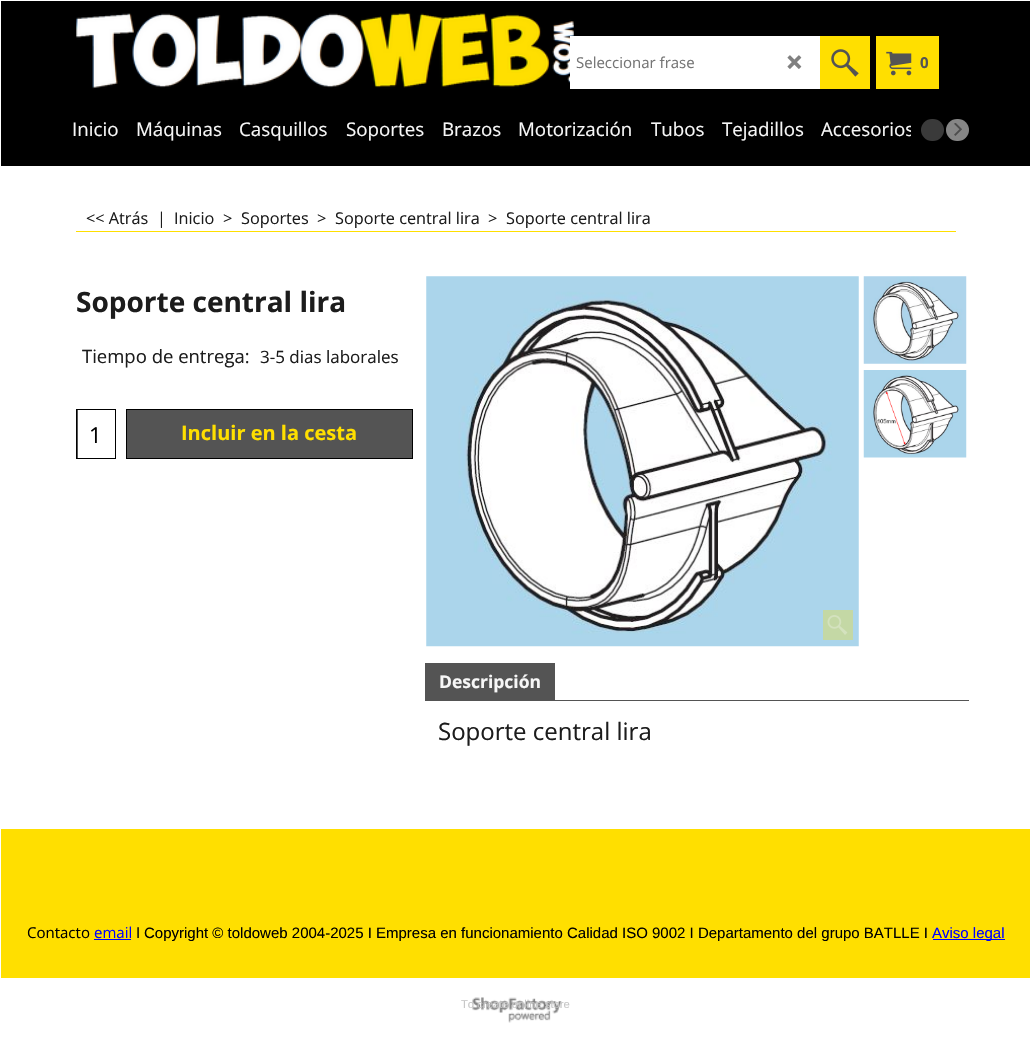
void draw(SkCanvas* canvas) {
	SkPaint paint;
	paint.setAntiAlias(true);
	canvas->clear(0xffffffff);
	paint.setColor(0xff000000);
	canvas->drawRect(SkRect::MakeXYWH(1, 1, 1029, 165), paint);
	canvas->drawImageRect(SkImages::DeferredFromEncodedData(SkData::MakeFromFileName("img1.png")), SkRect::MakeXYWH(76, 12, 736, 77), SkSamplingOptions());
	paint.setColor(0xffffffff);
	canvas->drawRect(SkRect::MakeXYWH(570, 36, 250, 53), paint);
	SkFont f1(fontMgr->matchFamilyStyle("Open Sans", SkFontStyle::Normal()), 15);
	f1.setSubpixel(true);
	paint.setColor(0xff757575);
	canvas->drawString("Seleccionar frase", 576, 68, f1, paint);
	canvas->drawImageRect(SkImages::DeferredFromEncodedData(SkData::MakeFromFileName("img2.png")), SkRect::MakeXYWH(787, 55, 15, 14), SkSamplingOptions());
	paint.setColor(0xffffdf00);
	canvas->drawRect(SkRect::MakeXYWH(820, 36, 50, 53), paint);
	canvas->drawImageRect(SkImages::DeferredFromEncodedData(SkData::MakeFromFileName("img3.png")), SkRect::MakeXYWH(831, 49, 28, 28), SkSamplingOptions());
	canvas->drawRect(SkRect::MakeXYWH(876, 36, 63, 53), paint);
	canvas->drawImageRect(SkImages::DeferredFromEncodedData(SkData::MakeFromFileName("img4.png")), SkRect::MakeXYWH(886, 51, 26, 25), SkSamplingOptions());
	SkFont f2(fontMgr->matchFamilyStyle("Open Sans", SkFontStyle::Bold()), 15);
	f2.setSubpixel(true);
	paint.setColor(0xff545454);
	canvas->drawString("0", 920, 68, f2, paint);
	SkFont f3(fontMgr->matchFamilyStyle("Open Sans", SkFontStyle::Normal()), 18.75);
	f3.setSubpixel(true);
	paint.setColor(0xfff7f7f7);
	canvas->drawString("Inicio", 72, 136, f3, paint);
	canvas->drawString("Máquinas", 136, 136, f3, paint);
	canvas->drawString("Casquillos", 239, 136, f3, paint);
	canvas->drawString("Soportes", 346, 136, f3, paint);
	canvas->drawString("Brazos", 442, 136, f3, paint);
	canvas->drawString("Motorización", 518, 136, f3, paint);
	canvas->drawString("Tubos", 651, 136, f3, paint);
	canvas->drawString("Tejadillos", 722, 136, f3, paint);
	canvas->save();
	canvas->clipRect(SkRect::MakeXYWH(64, 109, 847, 41));
	canvas->drawString("Accesorios", 821, 136, f3, paint);
	canvas->restore();
	paint.setColor(0xff3a3a3a);
	canvas->drawRoundRect(SkRect::MakeXYWH(921, 119, 23, 22), 11, 11, paint);
	paint.setColor(0xff868686);
	canvas->drawRoundRect(SkRect::MakeXYWH(946, 119, 23, 22), 11, 11, paint);
	canvas->drawImageRect(SkImages::DeferredFromEncodedData(SkData::MakeFromFileName("img5.png")), SkRect::MakeXYWH(954, 123, 8, 13), SkSamplingOptions());
	paint.setColor(0xffffdf00);
	canvas->drawRect(SkRect::MakeXYWH(76, 231, 880, 1), paint);
	SkFont f4(fontMgr->matchFamilyStyle("Open Sans", SkFontStyle::Normal()), 16.25);
	f4.setSubpixel(true);
	paint.setColor(0xff1c1c1c);
	canvas->drawString("<< Atrás", 86, 224, f4, paint);
	canvas->drawString("|", 157, 224, f4, paint);
	canvas->drawString("Inicio", 174, 224, f4, paint);
	canvas->drawString(">", 223, 224, f4, paint);
	canvas->drawString("Soportes", 241, 224, f4, paint);
	canvas->drawString(">", 317, 224, f4, paint);
	canvas->drawString("Soporte central lira", 335, 224, f4, paint);
	canvas->drawString(">", 488, 224, f4, paint);
	canvas->drawString("Soporte central lira", 506, 224, f4, paint);
	SkFont f5(fontMgr->matchFamilyStyle("Open Sans", SkFontStyle::Bold()), 28);
	f5.setSubpixel(true);
	canvas->drawString("Soporte central lira", 76, 312, f5, paint);
	SkFont f6(fontMgr->matchFamilyStyle("Open Sans", SkFontStyle::Normal()), 18.5);
	f6.setSubpixel(true);
	canvas->drawString("Tiempo de entrega:", 82, 363, f6, paint);
	SkFont f7(fontMgr->matchFamilyStyle("Open Sans", SkFontStyle::Normal()), 17);
	f7.setSubpixel(true);
	canvas->drawString("3-5 dias laborales", 260, 363, f7, paint);
	paint.setColor(0xff545454);
	canvas->drawRect(SkRect::MakeXYWH(77, 410, 1, 48), paint);
	paint.setStroke(true);
	paint.setStrokeWidth(1);
	paint.setColor(0xff000000);
	canvas->drawRect(SkRect::MakeXYWH(76.5, 409.5, 39, 49), paint);
	SkFont f8(fontMgr->matchFamilyStyle("Open Sans", SkFontStyle::Normal()), 22);
	f8.setSubpixel(true);
	paint.setStroke(false);
	canvas->drawString("1", 89, 443, f8, paint);
	paint.setColor(0xff545454);
	canvas->drawRect(SkRect::MakeXYWH(126.5, 409.5, 286, 49), paint);
	paint.setStroke(true);
	paint.setColor(0xff000000);
	canvas->drawRect(SkRect::MakeXYWH(126.5, 409.5, 286, 49), paint);
	SkFont f9(fontMgr->matchFamilyStyle("Open Sans", SkFontStyle::Bold()), 20);
	f9.setSubpixel(true);
	paint.setStroke(false);
	paint.setColor(0xffffdf00);
	canvas->drawString("Incluir en la cesta", 181, 440, f9, paint);
	canvas->drawImageRect(SkImages::DeferredFromEncodedData(SkData::MakeFromFileName("img6.png")), SkRect::MakeXYWH(426, 276, 433, 371), SkSamplingOptions());
	paint.setColor(0xffc4d8a5);
	canvas->drawRect(SkRect::MakeXYWH(823, 610, 30, 30), paint);
	canvas->drawImageRect(SkImages::DeferredFromEncodedData(SkData::MakeFromFileName("img7.png")), SkRect::MakeXYWH(827, 615, 21, 20), SkSamplingOptions());
	canvas->drawImageRect(SkImages::DeferredFromEncodedData(SkData::MakeFromFileName("img8.png")), SkRect::MakeXYWH(863, 276, 104, 88), SkSamplingOptions());
	canvas->drawImageRect(SkImages::DeferredFromEncodedData(SkData::MakeFromFileName("img9.png")), SkRect::MakeXYWH(863, 370, 104, 88), SkSamplingOptions());
	paint.setColor(0xff545454);
	canvas->drawRect(SkRect::MakeXYWH(425, 663, 130, 38), paint);
	SkFont f10(fontMgr->matchFamilyStyle("Open Sans", SkFontStyle::Bold()), 17.5);
	f10.setSubpixel(true);
	paint.setColor(0xfff7f7f7);
	canvas->drawString("Descripción", 439, 688, f10, paint);
	paint.setColor(0xff545454);
	canvas->drawRect(SkRect::MakeXYWH(555, 700, 414, 1), paint);
	SkFont f11(fontMgr->matchFamilyStyle("Open Sans", SkFontStyle::Normal()), 24);
	f11.setSubpixel(true);
	paint.setColor(0xff1c1c1c);
	canvas->drawString("Soporte central lira", 438, 740, f11, paint);
	paint.setColor(0xffffdf00);
	canvas->drawRect(SkRect::MakeXYWH(1, 829, 1029, 149), paint);
	paint.setColor(0xff000000);
	canvas->drawString("Contacto", 27, 938, f1, paint);
	paint.setColor(0xff0000ff);
	canvas->drawString("email", 94, 938, f1, paint);
	canvas->drawRect(SkRect::MakeXYWH(94, 939, 37, 1), paint);
	paint.setColor(0xff000000);
	canvas->drawString("I", 136, 938, f1, paint);
	SkFont f12(fontMgr->matchFamilyStyle("Liberation Sans", SkFontStyle::Normal()), 15);
	f12.setSubpixel(true);
	canvas->drawString("Copyright © toldoweb 2004-2025 I Empresa en funcionamiento Calidad ISO 9002 I Departamento del grupo BATLLE I", 144, 938, f12, paint);
	paint.setColor(0xff0000ff);
	canvas->drawRect(SkRect::MakeXYWH(933, 939, 72, 1), paint);
	canvas->drawString("Aviso legal", 932, 938, f12, paint);
	canvas->drawImageRect(SkImages::DeferredFromEncodedData(SkData::MakeFromFileName("img10.png")), SkRect::MakeXYWH(472, 997, 90, 26), SkSamplingOptions());
	SkFont f13(fontMgr->matchFamilyStyle("Liberation Sans", SkFontStyle::Normal()), 11.25);
	f13.setSubpixel(true);
	paint.setColor(0xffc6c6c6);
	canvas->drawString("To create online store", 461, 1008, f13, paint);
}
